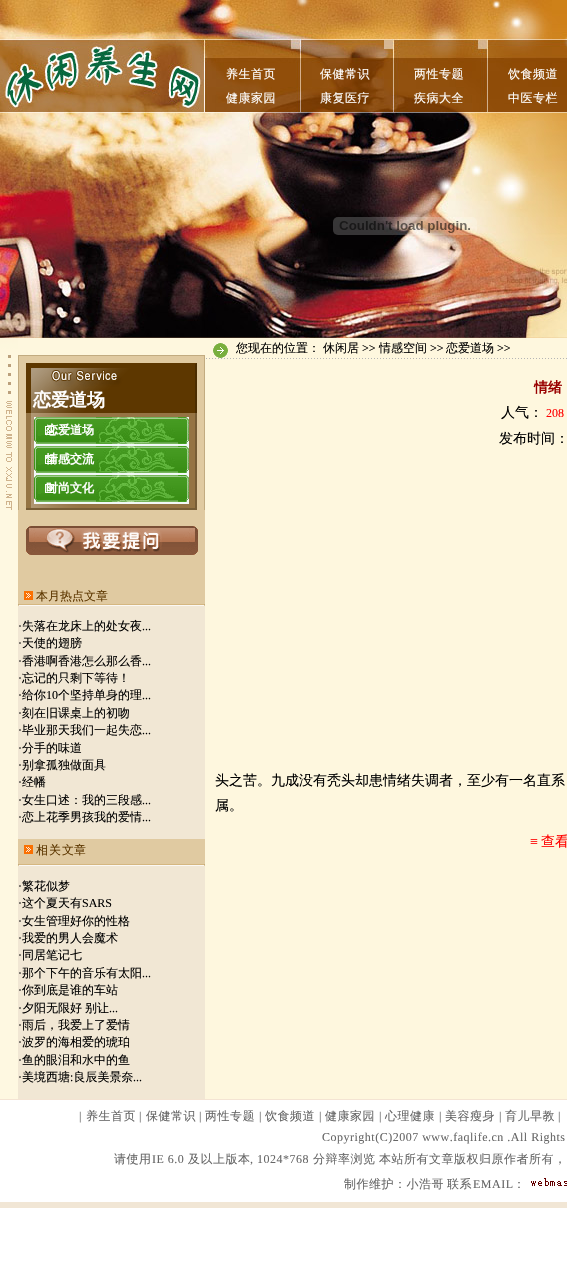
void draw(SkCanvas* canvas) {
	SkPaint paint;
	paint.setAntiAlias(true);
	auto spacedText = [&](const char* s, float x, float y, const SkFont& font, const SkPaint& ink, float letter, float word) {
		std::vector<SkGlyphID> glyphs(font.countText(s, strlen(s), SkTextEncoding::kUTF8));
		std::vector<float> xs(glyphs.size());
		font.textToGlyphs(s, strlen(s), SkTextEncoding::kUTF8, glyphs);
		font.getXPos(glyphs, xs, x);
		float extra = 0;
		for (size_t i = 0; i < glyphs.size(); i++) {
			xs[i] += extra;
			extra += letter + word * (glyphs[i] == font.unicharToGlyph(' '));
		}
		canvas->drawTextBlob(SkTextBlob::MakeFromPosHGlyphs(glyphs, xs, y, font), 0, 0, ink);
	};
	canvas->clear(0xffffffff);
	canvas->drawImageRect(SkImages::DeferredFromEncodedData(SkData::MakeFromFileName("img1.png")), SkRect::MakeXYWH(0, 0, 567, 39), SkSamplingOptions());
	canvas->drawImageRect(SkImages::DeferredFromEncodedData(SkData::MakeFromFileName("img2.png")), SkRect::MakeXYWH(0, 39, 567, 74), SkSamplingOptions());
	SkFont f1(fontMgr->matchFamilyStyle("WenQuanYi Zen Hei", SkFontStyle(500, SkFontStyle::kNormal_Width, SkFontStyle::kUpright_Slant)), 12);
	f1.setSubpixel(true);
	paint.setColor(0xffffffff);
	spacedText("养生首页", 226, 78, f1, paint, 0.5, 0);
	spacedText("保健常识", 320, 78, f1, paint, 0.5, 0);
	spacedText("两性专题", 414, 78, f1, paint, 0.5, 0);
	spacedText("饮食频道", 508, 78, f1, paint, 0.5, 0);
	spacedText("健康家园", 226, 102, f1, paint, 0.5, 0);
	spacedText("康复医疗", 320, 102, f1, paint, 0.5, 0);
	spacedText("疾病大全", 414, 102, f1, paint, 0.5, 0);
	spacedText("中医专栏", 508, 102, f1, paint, 0.5, 0);
	canvas->drawImageRect(SkImages::DeferredFromEncodedData(SkData::MakeFromFileName("img3.png")), SkRect::MakeXYWH(0, 113, 567, 225), SkSamplingOptions());
	canvas->drawImageRect(SkImages::DeferredFromEncodedData(SkData::MakeFromFileName("img4.png")), SkRect::MakeXYWH(333, 217, 144, 18), SkSamplingOptions());
	paint.setColor(0xfffef8e1);
	canvas->drawRect(SkRect::MakeXYWH(0, 510, 18, 589), paint);
	canvas->drawImageRect(SkImages::DeferredFromEncodedData(SkData::MakeFromFileName("img5.png")), SkRect::MakeXYWH(0, 338, 18, 172), SkSamplingOptions());
	paint.setColor(0xfff1e7d4);
	canvas->drawRect(SkRect::MakeXYWH(18, 606, 187, 493), paint);
	paint.setColor(0xfffef7de);
	canvas->drawRect(SkRect::MakeXYWH(18, 338, 187, 17), paint);
	canvas->drawImageRect(SkImages::DeferredFromEncodedData(SkData::MakeFromFileName("img6.png")), SkRect::MakeXYWH(18, 355, 187, 58), SkSamplingOptions());
	SkFont f2(fontMgr->matchFamilyStyle("WenQuanYi Zen Hei", SkFontStyle::Bold()), 18);
	f2.setSubpixel(true);
	paint.setColor(0xffffffff);
	canvas->drawString("恋爱道场", 33, 406, f2, paint);
	canvas->drawImageRect(SkImages::DeferredFromEncodedData(SkData::MakeFromFileName("img7.png")), SkRect::MakeXYWH(18, 413, 187, 95), SkSamplingOptions());
	paint.setColor(0xfff2f8f8);
	canvas->drawRect(SkRect::MakeXYWH(34, 417, 155, 87), paint);
	canvas->drawImageRect(SkImages::DeferredFromEncodedData(SkData::MakeFromFileName("img8.png")), SkRect::MakeXYWH(34, 417, 155, 27), SkSamplingOptions());
	SkFont f3(fontMgr->matchFamilyStyle("WenQuanYi Zen Hei", SkFontStyle::Bold()), 12);
	f3.setSubpixel(true);
	paint.setColor(0xffffffff);
	canvas->drawString("恋爱道场", 46, 434, f3, paint);
	canvas->drawImageRect(SkImages::DeferredFromEncodedData(SkData::MakeFromFileName("img8.png")), SkRect::MakeXYWH(34, 446, 155, 27), SkSamplingOptions());
	canvas->drawString("情感交流", 46, 463, f3, paint);
	canvas->drawImageRect(SkImages::DeferredFromEncodedData(SkData::MakeFromFileName("img8.png")), SkRect::MakeXYWH(34, 475, 155, 27), SkSamplingOptions());
	canvas->drawString("时尚文化", 46, 492, f3, paint);
	canvas->drawImageRect(SkImages::DeferredFromEncodedData(SkData::MakeFromFileName("img9.png")), SkRect::MakeXYWH(18, 508, 187, 2), SkSamplingOptions());
	paint.setColor(0xffe0caa1);
	canvas->drawRect(SkRect::MakeXYWH(18, 510, 187, 94), paint);
	canvas->drawImageRect(SkImages::DeferredFromEncodedData(SkData::MakeFromFileName("img10.png")), SkRect::MakeXYWH(26, 526, 172, 29), SkSamplingOptions());
	canvas->drawImageRect(SkImages::DeferredFromEncodedData(SkData::MakeFromFileName("img11.png")), SkRect::MakeXYWH(24, 591, 9, 9), SkSamplingOptions());
	paint.setColor(0xff5d3700);
	canvas->drawString("本月热点文章", 36, 600, f1, paint);
	canvas->drawImageRect(SkImages::DeferredFromEncodedData(SkData::MakeFromFileName("img12.png")), SkRect::MakeXYWH(18, 604, 187, 2), SkSamplingOptions());
	SkFont f4(fontMgr->matchFamilyStyle("Liberation Serif", SkFontStyle::Normal()), 12);
	f4.setSubpixel(true);
	paint.setColor(0xff000000);
	canvas->drawString("·", 18, 630, f4, paint);
	canvas->drawString("失落在龙床上的处女夜", 22, 630, f1, paint);
	canvas->drawString("...", 142, 630, f4, paint);
	canvas->drawString("·", 18, 647, f4, paint);
	canvas->drawString("天使的翅膀", 22, 647, f1, paint);
	canvas->drawString("·", 18, 665, f4, paint);
	canvas->drawString("香港啊香港怎么那么香", 22, 665, f1, paint);
	canvas->drawString("...", 142, 665, f4, paint);
	canvas->drawString("·", 18, 682, f4, paint);
	canvas->drawString("忘记的只剩下等待！", 22, 682, f1, paint);
	canvas->drawString("·", 18, 699, f4, paint);
	canvas->drawString("给你", 22, 699, f1, paint);
	canvas->drawString("10", 46, 699, f4, paint);
	canvas->drawString("个坚持单身的理", 58, 699, f1, paint);
	canvas->drawString("...", 142, 699, f4, paint);
	canvas->drawString("·", 18, 717, f4, paint);
	canvas->drawString("刻在旧课桌上的初吻", 22, 717, f1, paint);
	canvas->drawString("·", 18, 734, f4, paint);
	canvas->drawString("毕业那天我们一起失恋", 22, 734, f1, paint);
	canvas->drawString("...", 142, 734, f4, paint);
	canvas->drawString("·", 18, 752, f4, paint);
	canvas->drawString("分手的味道", 22, 752, f1, paint);
	canvas->drawString("·", 18, 769, f4, paint);
	canvas->drawString("别拿孤独做面具", 22, 769, f1, paint);
	canvas->drawString("·", 18, 786, f4, paint);
	canvas->drawString("经幡", 22, 786, f1, paint);
	canvas->drawString("·", 18, 804, f4, paint);
	canvas->drawString("女生口述：我的三段感", 22, 804, f1, paint);
	canvas->drawString("...", 142, 804, f4, paint);
	canvas->drawString("·", 18, 821, f4, paint);
	canvas->drawString("恋上花季男孩我的爱情", 22, 821, f1, paint);
	canvas->drawString("...", 142, 821, f4, paint);
	paint.setColor(0xffe0caa1);
	canvas->drawRect(SkRect::MakeXYWH(18, 839, 187, 25), paint);
	canvas->drawImageRect(SkImages::DeferredFromEncodedData(SkData::MakeFromFileName("img11.png")), SkRect::MakeXYWH(24, 845, 9, 9), SkSamplingOptions());
	paint.setColor(0xff5d3700);
	spacedText("相关", 36, 854, f1, paint, 1, 0);
	canvas->drawString("文章", 62, 854, f1, paint);
	canvas->drawImageRect(SkImages::DeferredFromEncodedData(SkData::MakeFromFileName("img12.png")), SkRect::MakeXYWH(18, 864, 187, 2), SkSamplingOptions());
	paint.setColor(0xff000000);
	canvas->drawString("·", 18, 890, f4, paint);
	canvas->drawString("繁花似梦", 22, 890, f1, paint);
	canvas->drawString("·", 18, 907, f4, paint);
	canvas->drawString("这个夏天有", 22, 907, f1, paint);
	canvas->drawString("SARS", 82, 907, f4, paint);
	canvas->drawString("·", 18, 925, f4, paint);
	canvas->drawString("女生管理好你的性格", 22, 925, f1, paint);
	canvas->drawString("·", 18, 942, f4, paint);
	canvas->drawString("我爱的男人会魔术", 22, 942, f1, paint);
	canvas->drawString("·", 18, 959, f4, paint);
	canvas->drawString("同居笔记七", 22, 959, f1, paint);
	canvas->drawString("·", 18, 977, f4, paint);
	canvas->drawString("那个下午的音乐有太阳", 22, 977, f1, paint);
	canvas->drawString("...", 142, 977, f4, paint);
	canvas->drawString("·", 18, 994, f4, paint);
	canvas->drawString("你到底是谁的车站", 22, 994, f1, paint);
	canvas->drawString("·", 18, 1012, f4, paint);
	canvas->drawString("夕阳无限好", 22, 1012, f1, paint);
	canvas->drawString("别让", 85, 1012, f1, paint);
	canvas->drawString("...", 109, 1012, f4, paint);
	canvas->drawString("·", 18, 1029, f4, paint);
	canvas->drawString("雨后，我爱上了爱情", 22, 1029, f1, paint);
	canvas->drawString("·", 18, 1046, f4, paint);
	canvas->drawString("波罗的海相爱的琥珀", 22, 1046, f1, paint);
	canvas->drawString("·", 18, 1064, f4, paint);
	canvas->drawString("鱼的眼泪和水中的鱼", 22, 1064, f1, paint);
	canvas->drawString("美境西塘 良辰美景奈", 22, 1081, f1, paint);
	canvas->drawString("·", 18, 1081, f4, paint);
	canvas->drawString(":", 70, 1081, f4, paint);
	canvas->drawString("...", 133, 1081, f4, paint);
	paint.setColor(0xfffef7de);
	canvas->drawRect(SkRect::MakeXYWH(205, 338, 362, 761), paint);
	canvas->drawImageRect(SkImages::DeferredFromEncodedData(SkData::MakeFromFileName("img13.png")), SkRect::MakeXYWH(213, 343, 15, 15), SkSamplingOptions());
	paint.setColor(0xff000000);
	canvas->drawString("您现在的位置：", 236, 352, f1, paint);
	canvas->drawString("休闲居", 323, 352, f1, paint);
	canvas->drawString(">>", 362, 352, f4, paint);
	canvas->drawString("情感空间", 379, 352, f1, paint);
	canvas->drawString(">>", 430, 352, f4, paint);
	canvas->drawString("恋爱道场", 446, 352, f1, paint);
	canvas->drawString(">>", 497, 352, f4, paint);
	canvas->drawImageRect(SkImages::DeferredFromEncodedData(SkData::MakeFromFileName("img14.png")), SkRect::MakeXYWH(206, 358, 361, 1), SkSamplingOptions());
	SkFont f5(fontMgr->matchFamilyStyle("WenQuanYi Zen Hei", SkFontStyle::Bold()), 14);
	f5.setSubpixel(true);
	paint.setColor(0xff990000);
	canvas->drawString("情绪", 534, 392, f5, paint);
	SkFont f6(fontMgr->matchFamilyStyle("WenQuanYi Zen Hei", SkFontStyle(500, SkFontStyle::kNormal_Width, SkFontStyle::kUpright_Slant)), 14);
	f6.setSubpixel(true);
	paint.setColor(0xff000000);
	canvas->drawString("人气：", 501, 417, f6, paint);
	paint.setColor(0xffff0000);
	canvas->drawString("208", 546, 417, f4, paint);
	paint.setColor(0xff000000);
	canvas->drawString("发布时间：", 499, 443, f6, paint);
	canvas->drawString("头之苦。九成没有秃头却患情绪失调者，至少有一名直系", 215, 785, f6, paint);
	canvas->drawString("属。", 215, 810, f6, paint);
	SkFont f7(fontMgr->matchFamilyStyle("Liberation Serif", SkFontStyle::Normal()), 14);
	f7.setSubpixel(true);
	paint.setColor(0xffff0000);
	canvas->drawString("≡", 530, 846, f7, paint);
	canvas->drawString("查看", 541, 846, f6, paint);
	paint.setColor(0xfff4e4d3);
	canvas->drawRect(SkRect::MakeXYWH(0, 1099, 567, 1), paint);
	paint.setColor(0xfff1e6d5);
	canvas->drawRect(SkRect::MakeXYWH(0, 1202, 567, 6), paint);
	paint.setColor(0xff666666);
	spacedText("|", 79, 1120, f4, paint, 0.5, 0);
	spacedText("养生首页", 86, 1120, f1, paint, 0.5, 0);
	spacedText("|", 139, 1120, f4, paint, 0.5, 0);
	spacedText("保健常识", 146, 1120, f1, paint, 0.5, 0);
	spacedText("|", 199, 1120, f4, paint, 0.5, 0);
	spacedText("两性专题", 205, 1120, f1, paint, 0.5, 0);
	spacedText("|", 259, 1120, f4, paint, 0.5, 0);
	spacedText("饮食频道", 265, 1120, f1, paint, 0.5, 0);
	spacedText("|", 319, 1120, f4, paint, 0.5, 0);
	spacedText("健康家园", 325, 1120, f1, paint, 0.5, 0);
	spacedText("|", 379, 1120, f4, paint, 0.5, 0);
	spacedText("心理健康", 385, 1120, f1, paint, 0.5, 0);
	spacedText("|", 439, 1120, f4, paint, 0.5, 0);
	spacedText("美容瘦身", 445, 1120, f1, paint, 0.5, 0);
	spacedText("|", 499, 1120, f4, paint, 0.5, 0);
	spacedText("育儿早教", 505, 1120, f1, paint, 0.5, 0);
	spacedText("|", 558, 1120, f4, paint, 0.5, 0);
	spacedText("Copyright(C)2007 www.faqlife.cn .All Rights", 322, 1141, f4, paint, 0.5, 0);
	spacedText("请使用", 114, 1163, f1, paint, 0.5, 0);
	spacedText("IE 6.0", 152, 1163, f4, paint, 0.5, 0);
	spacedText("及以上版本", 188, 1163, f1, paint, 0.5, 0);
	spacedText(", 1024*768", 250, 1163, f4, paint, 0.5, 0);
	spacedText("分辩率浏览", 313, 1163, f1, paint, 0.5, 0);
	spacedText("本站所有文章版权归原作者所有，", 379, 1163, f1, paint, 0.5, 0);
	spacedText("制作维护：小浩哥 联系", 344, 1188, f1, paint, 0.5, -1);
	spacedText("EMAIL", 473, 1188, f4, paint, 0.5, 0);
	spacedText("：", 513, 1188, f1, paint, 0.5, 0);
	canvas->drawImageRect(SkImages::DeferredFromEncodedData(SkData::MakeFromFileName("img15.png")), SkRect::MakeXYWH(531, 1178, 36, 8), SkSamplingOptions());
}
